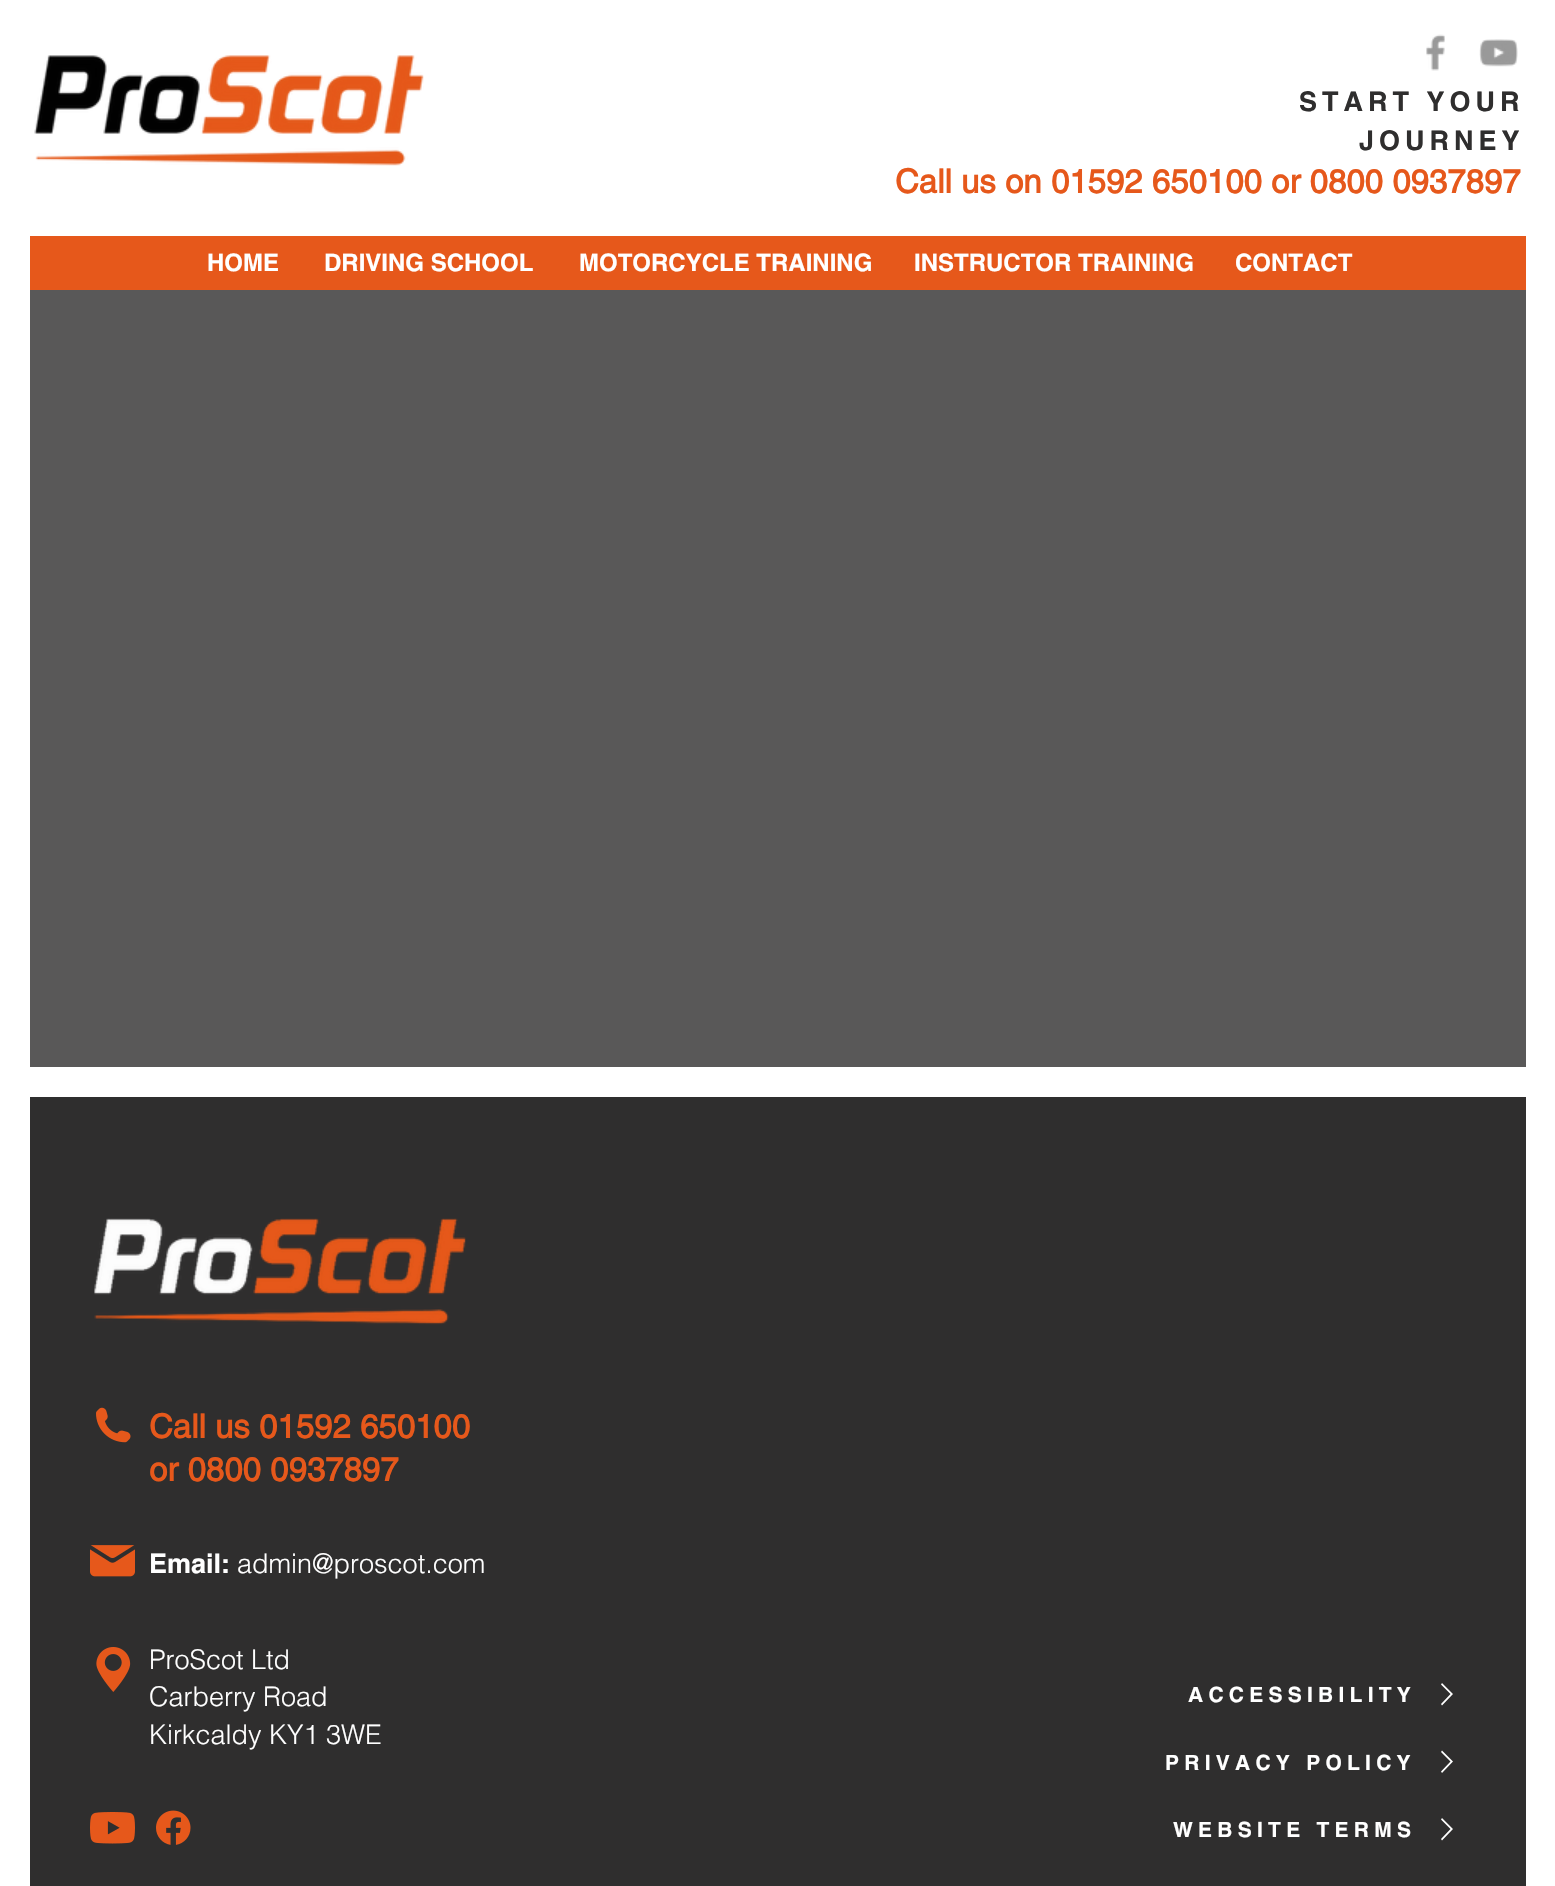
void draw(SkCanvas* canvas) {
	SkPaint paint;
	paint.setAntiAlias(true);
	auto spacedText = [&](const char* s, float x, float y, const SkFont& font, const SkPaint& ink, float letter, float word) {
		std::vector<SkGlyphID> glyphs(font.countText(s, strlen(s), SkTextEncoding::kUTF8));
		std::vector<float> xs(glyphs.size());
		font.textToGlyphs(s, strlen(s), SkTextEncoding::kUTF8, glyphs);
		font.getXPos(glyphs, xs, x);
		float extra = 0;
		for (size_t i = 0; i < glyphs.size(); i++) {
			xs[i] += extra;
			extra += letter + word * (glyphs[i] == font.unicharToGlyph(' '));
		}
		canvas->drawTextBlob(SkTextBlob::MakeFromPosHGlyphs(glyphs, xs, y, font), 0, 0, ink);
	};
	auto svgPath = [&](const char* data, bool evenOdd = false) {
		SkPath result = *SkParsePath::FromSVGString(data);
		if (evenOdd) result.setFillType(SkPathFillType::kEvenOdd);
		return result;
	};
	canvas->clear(0xffffffff);
	canvas->drawImageRect(SkImages::DeferredFromEncodedData(SkData::MakeFromFileName("img1.png")), SkRect::MakeXYWH(34, 55, 390, 111), SkSamplingOptions());
	canvas->drawImageRect(SkImages::DeferredFromEncodedData(SkData::MakeFromFileName("img2.png")), SkRect::MakeXYWH(1426, 34, 19, 37), SkSamplingOptions());
	canvas->drawImageRect(SkImages::DeferredFromEncodedData(SkData::MakeFromFileName("img3.png")), SkRect::MakeXYWH(1479, 39, 39, 28), SkSamplingOptions());
	SkFont f1(fontMgr->matchFamilyStyle("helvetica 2", SkFontStyle::Bold()), 27);
	f1.setSubpixel(true);
	paint.setColor(0xff2f2e2e);
	spacedText("START YOUR", 1299, 111, f1, paint, 5, 0);
	spacedText("JOURNEY", 1359, 150, f1, paint, 5, 0);
	SkFont f2(fontMgr->matchFamilyStyle("helvetica", SkFontStyle::Bold()), 33);
	f2.setSubpixel(true);
	paint.setColor(0xffe6581b);
	canvas->drawString("Call us on 01592 650100 or 0800 0937897", 895, 193, f2, paint);
	canvas->drawRect(SkRect::MakeXYWH(30, 236, 1496, 54), paint);
	SkFont f3(fontMgr->matchFamilyStyle("helvetica 2", SkFontStyle::Bold()), 24);
	f3.setSubpixel(true);
	paint.setColor(0xffffffff);
	canvas->drawString("HOME", 207, 271, f3, paint);
	canvas->drawString("DRIVING SCHOOL", 324, 271, f3, paint);
	canvas->drawString("MOTORCYCLE TRAINING", 579, 271, f3, paint);
	canvas->drawString("INSTRUCTOR TRAINING", 914, 271, f3, paint);
	canvas->drawString("CONTACT", 1235, 271, f3, paint);
	paint.setColor(0xff595858);
	canvas->drawRect(SkRect::MakeXYWH(30, 290, 1496, 777), paint);
	paint.setColor(0xff2f2e2e);
	canvas->drawRect(SkRect::MakeXYWH(30, 1097, 1496, 789), paint);
	canvas->drawImageRect(SkImages::DeferredFromEncodedData(SkData::MakeFromFileName("img4.png")), SkRect::MakeXYWH(94, 1218, 372, 107), SkSamplingOptions());
	canvas->drawImageRect(SkImages::DeferredFromEncodedData(SkData::MakeFromFileName("img5.png")), SkRect::MakeXYWH(96, 1407, 35, 36), SkSamplingOptions());
	paint.setColor(0xffe6581b);
	canvas->drawString("Call us 01592 650100", 149, 1438, f2, paint);
	canvas->drawString("or 0800 0937897", 149, 1481, f2, paint);
	canvas->drawImageRect(SkImages::DeferredFromEncodedData(SkData::MakeFromFileName("img6.png")), SkRect::MakeXYWH(90, 1545, 45, 32), SkSamplingOptions());
	paint.setColor(0xffffffff);
	canvas->drawString("Email:", 149, 1573, f1, paint);
	SkFont f4(fontMgr->matchFamilyStyle("helvetica", SkFontStyle(300, SkFontStyle::kNormal_Width, SkFontStyle::kUpright_Slant)), 27);
	f4.setSubpixel(true);
	canvas->drawString("admin@proscot.com", 237, 1573, f4, paint);
	canvas->drawImageRect(SkImages::DeferredFromEncodedData(SkData::MakeFromFileName("img7.png")), SkRect::MakeXYWH(96, 1647, 35, 45), SkSamplingOptions());
	canvas->drawString("ProScot Ltd", 149, 1669, f4, paint);
	canvas->drawString("Carberry Road", 149, 1706, f4, paint);
	canvas->drawString("Kirkcaldy KY1 3WE", 149, 1744, f4, paint);
	canvas->drawImageRect(SkImages::DeferredFromEncodedData(SkData::MakeFromFileName("img8.png")), SkRect::MakeXYWH(90, 1812, 45, 32), SkSamplingOptions());
	canvas->drawImageRect(SkImages::DeferredFromEncodedData(SkData::MakeFromFileName("img9.png")), SkRect::MakeXYWH(156, 1810, 35, 35), SkSamplingOptions());
	SkFont f5(fontMgr->matchFamilyStyle("helvetica 2", SkFontStyle::Bold()), 21);
	f5.setSubpixel(true);
	spacedText("ACCESSIBILITY", 1188, 1702, f5, paint, 5.25, 0);
	canvas->drawPath(svgPath("M1442 1705.5L1441 1704L1450.5 1694L1441 1684.5L1442 1683L1453 1694Z", true), paint);
	spacedText("PRIVACY POLICY", 1165, 1770, f5, paint, 5.25, 0);
	canvas->drawPath(svgPath("M1442 1773L1441 1771.5L1450.5 1761.5L1441 1752L1442 1750.5L1453 1761.5Z", true), paint);
	spacedText("WEBSITE TERMS", 1173, 1837, f5, paint, 5.25, 0);
	canvas->drawPath(svgPath("M1442 1840.5L1441 1839L1450.5 1829L1441 1819.5L1442 1818L1453 1829Z", true), paint);
}
